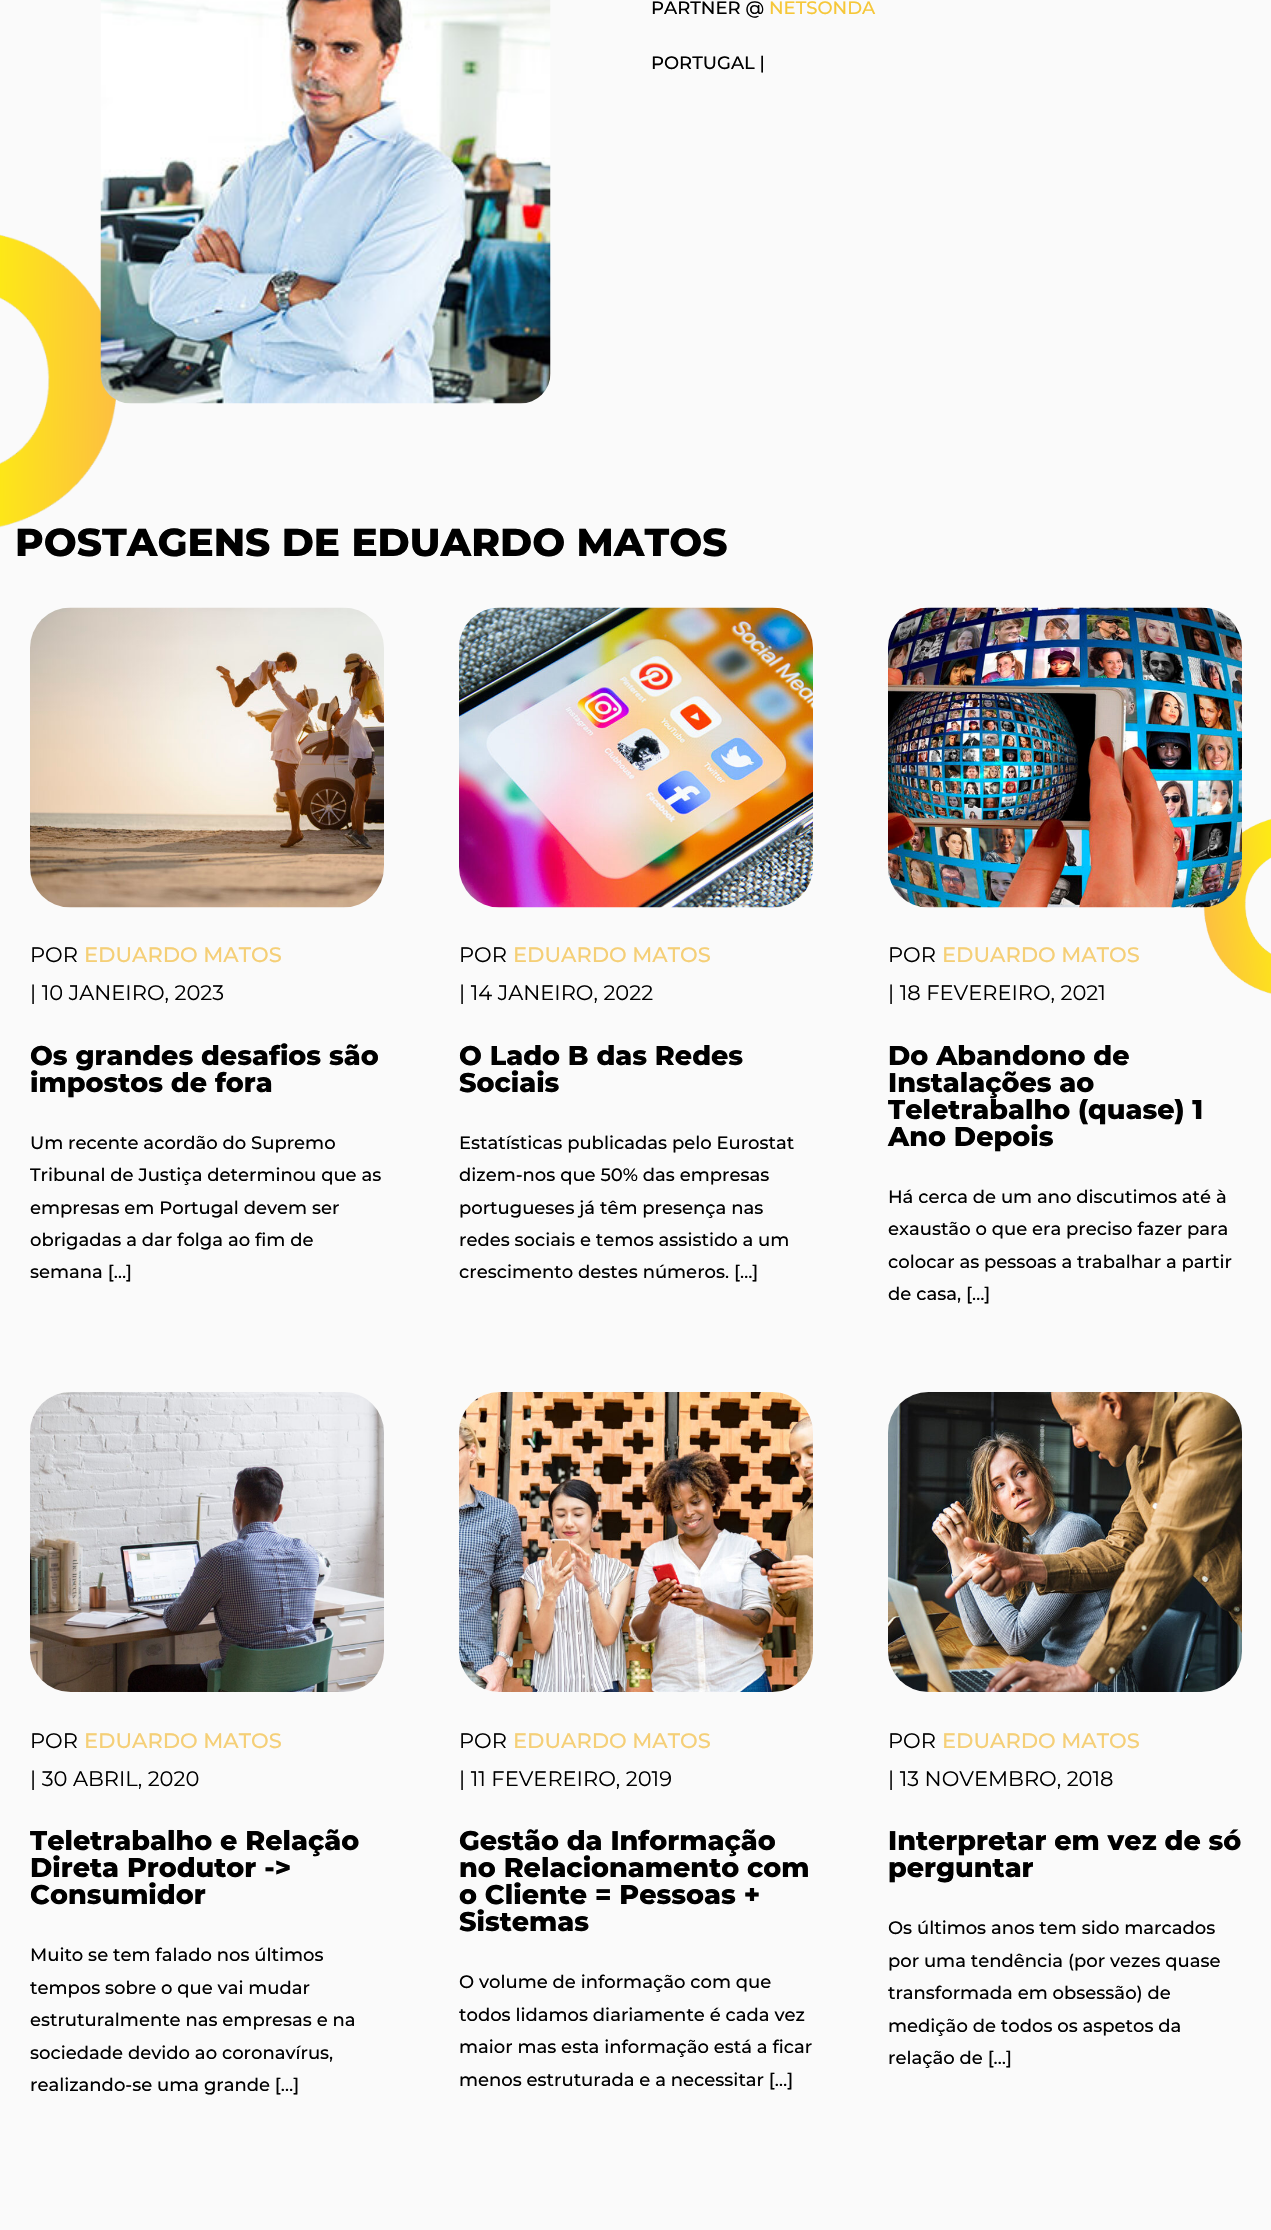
void draw(SkCanvas* canvas) {
	SkPaint paint;
	paint.setAntiAlias(true);
	canvas->clear(0xfffafafa);
	canvas->drawImageRect(SkImages::DeferredFromEncodedData(SkData::MakeFromFileName("img1.png")), SkRect::MakeXYWH(0, 234, 1271, 760), SkSamplingOptions());
	canvas->drawImageRect(SkImages::DeferredFromEncodedData(SkData::MakeFromFileName("img2.png")), SkRect::MakeXYWH(100, 0, 451, 404), SkSamplingOptions());
	SkFont f1(fontMgr->matchFamilyStyle("Montserrat", SkFontStyle(500, SkFontStyle::kNormal_Width, SkFontStyle::kUpright_Slant)), 18);
	f1.setSubpixel(true);
	paint.setColor(0xff000000);
	canvas->drawString("PARTNER @", 651, 14, f1, paint);
	paint.setColor(0xfff6c738);
	canvas->drawString("NETSONDA", 769, 14, f1, paint);
	paint.setColor(0xff000000);
	canvas->drawString("PORTUGAL |", 651, 69, f1, paint);
	SkFont f2(fontMgr->matchFamilyStyle("Montserrat", SkFontStyle(800, SkFontStyle::kNormal_Width, SkFontStyle::kUpright_Slant)), 39);
	f2.setSubpixel(true);
	canvas->drawString("POSTAGENS DE EDUARDO MATOS", 15, 556, f2, paint);
	canvas->drawImageRect(SkImages::DeferredFromEncodedData(SkData::MakeFromFileName("img3.png")), SkRect::MakeXYWH(30, 607, 354, 301), SkSamplingOptions());
	SkFont f3(fontMgr->matchFamilyStyle("Montserrat", SkFontStyle::Normal()), 21);
	f3.setSubpixel(true);
	canvas->drawString("POR", 30, 962, f3, paint);
	SkFont f4(fontMgr->matchFamilyStyle("Montserrat", SkFontStyle(500, SkFontStyle::kNormal_Width, SkFontStyle::kUpright_Slant)), 21);
	f4.setSubpixel(true);
	paint.setColor(0xfff5cf76);
	canvas->drawString("EDUARDO MATOS", 84, 962, f4, paint);
	paint.setColor(0xff000000);
	canvas->drawString("| 10 JANEIRO, 2023", 30, 1000, f3, paint);
	SkFont f5(fontMgr->matchFamilyStyle("Montserrat", SkFontStyle(800, SkFontStyle::kNormal_Width, SkFontStyle::kUpright_Slant)), 27);
	f5.setSubpixel(true);
	canvas->drawString("Os grandes desafios são", 30, 1065, f5, paint);
	canvas->drawString("impostos de fora", 30, 1092, f5, paint);
	canvas->drawString("Um recente acordão do Supremo", 30, 1149, f1, paint);
	canvas->drawString("Tribunal de Justiça determinou que as", 30, 1181, f1, paint);
	canvas->drawString("empresas em Portugal devem ser", 30, 1214, f1, paint);
	canvas->drawString("obrigadas a dar folga ao fim de", 30, 1246, f1, paint);
	canvas->drawString("semana […]", 30, 1278, f1, paint);
	canvas->drawImageRect(SkImages::DeferredFromEncodedData(SkData::MakeFromFileName("img4.png")), SkRect::MakeXYWH(459, 607, 354, 301), SkSamplingOptions());
	canvas->drawString("POR", 459, 962, f3, paint);
	paint.setColor(0xfff5cf76);
	canvas->drawString("EDUARDO MATOS", 513, 962, f4, paint);
	paint.setColor(0xff000000);
	canvas->drawString("| 14 JANEIRO, 2022", 459, 1000, f3, paint);
	canvas->drawString("O Lado B das Redes", 459, 1065, f5, paint);
	canvas->drawString("Sociais", 459, 1092, f5, paint);
	canvas->drawString("Estatísticas publicadas pelo Eurostat", 459, 1149, f1, paint);
	canvas->drawString("dizem-nos que 50% das empresas", 459, 1181, f1, paint);
	canvas->drawString("portugueses já têm presença nas", 459, 1214, f1, paint);
	canvas->drawString("redes sociais e temos assistido a um", 459, 1246, f1, paint);
	canvas->drawString("crescimento destes números. […]", 459, 1278, f1, paint);
	canvas->drawImageRect(SkImages::DeferredFromEncodedData(SkData::MakeFromFileName("img5.png")), SkRect::MakeXYWH(888, 607, 354, 301), SkSamplingOptions());
	canvas->drawString("POR", 888, 962, f3, paint);
	paint.setColor(0xfff5cf76);
	canvas->drawString("EDUARDO MATOS", 942, 962, f4, paint);
	paint.setColor(0xff000000);
	canvas->drawString("| 18 FEVEREIRO, 2021", 888, 1000, f3, paint);
	canvas->drawString("Do Abandono de", 888, 1065, f5, paint);
	canvas->drawString("Instalações ao", 888, 1092, f5, paint);
	canvas->drawString("Teletrabalho (quase) 1", 888, 1119, f5, paint);
	canvas->drawString("Ano Depois", 888, 1146, f5, paint);
	canvas->drawString("Há cerca de um ano discutimos até à", 888, 1203, f1, paint);
	canvas->drawString("exaustão o que era preciso fazer para", 888, 1235, f1, paint);
	canvas->drawString("colocar as pessoas a trabalhar a partir", 888, 1268, f1, paint);
	canvas->drawString("de casa, […]", 888, 1300, f1, paint);
	canvas->drawImageRect(SkImages::DeferredFromEncodedData(SkData::MakeFromFileName("img6.png")), SkRect::MakeXYWH(30, 1392, 354, 300), SkSamplingOptions());
	canvas->drawString("POR", 30, 1748, f3, paint);
	paint.setColor(0xfff5cf76);
	canvas->drawString("EDUARDO MATOS", 84, 1748, f4, paint);
	paint.setColor(0xff000000);
	canvas->drawString("| 30 ABRIL, 2020", 30, 1786, f3, paint);
	canvas->drawString("Teletrabalho e Relação", 30, 1850, f5, paint);
	canvas->drawString("Direta Produtor ->", 30, 1877, f5, paint);
	canvas->drawString("Consumidor", 30, 1904, f5, paint);
	canvas->drawString("Muito se tem falado nos últimos", 30, 1961, f1, paint);
	canvas->drawString("tempos sobre o que vai mudar", 30, 1994, f1, paint);
	canvas->drawString("estruturalmente nas empresas e na", 30, 2026, f1, paint);
	canvas->drawString("sociedade devido ao coronavírus,", 30, 2059, f1, paint);
	canvas->drawString("realizando-se uma grande […]", 30, 2091, f1, paint);
	canvas->drawImageRect(SkImages::DeferredFromEncodedData(SkData::MakeFromFileName("img7.png")), SkRect::MakeXYWH(459, 1392, 354, 300), SkSamplingOptions());
	canvas->drawString("POR", 459, 1748, f3, paint);
	paint.setColor(0xfff5cf76);
	canvas->drawString("EDUARDO MATOS", 513, 1748, f4, paint);
	paint.setColor(0xff000000);
	canvas->drawString("| 11 FEVEREIRO, 2019", 459, 1786, f3, paint);
	canvas->drawString("Gestão da Informação", 459, 1850, f5, paint);
	canvas->drawString("no Relacionamento com", 459, 1877, f5, paint);
	canvas->drawString("o Cliente = Pessoas +", 459, 1904, f5, paint);
	canvas->drawString("Sistemas", 459, 1931, f5, paint);
	canvas->drawString("O volume de informação com que", 459, 1988, f1, paint);
	canvas->drawString("todos lidamos diariamente é cada vez", 459, 2021, f1, paint);
	canvas->drawString("maior mas esta informação está a ficar", 459, 2053, f1, paint);
	canvas->drawString("menos estruturada e a necessitar […]", 459, 2086, f1, paint);
	canvas->drawImageRect(SkImages::DeferredFromEncodedData(SkData::MakeFromFileName("img8.png")), SkRect::MakeXYWH(888, 1392, 354, 300), SkSamplingOptions());
	canvas->drawString("POR", 888, 1748, f3, paint);
	paint.setColor(0xfff5cf76);
	canvas->drawString("EDUARDO MATOS", 942, 1748, f4, paint);
	paint.setColor(0xff000000);
	canvas->drawString("| 13 NOVEMBRO, 2018", 888, 1786, f3, paint);
	canvas->drawString("Interpretar em vez de só", 888, 1850, f5, paint);
	canvas->drawString("perguntar", 888, 1877, f5, paint);
	canvas->drawString("Os últimos anos tem sido marcados", 888, 1934, f1, paint);
	canvas->drawString("por uma tendência (por vezes quase", 888, 1967, f1, paint);
	canvas->drawString("transformada em obsessão) de", 888, 1999, f1, paint);
	canvas->drawString("medição de todos os aspetos da", 888, 2032, f1, paint);
	canvas->drawString("relação de […]", 888, 2064, f1, paint);
}
